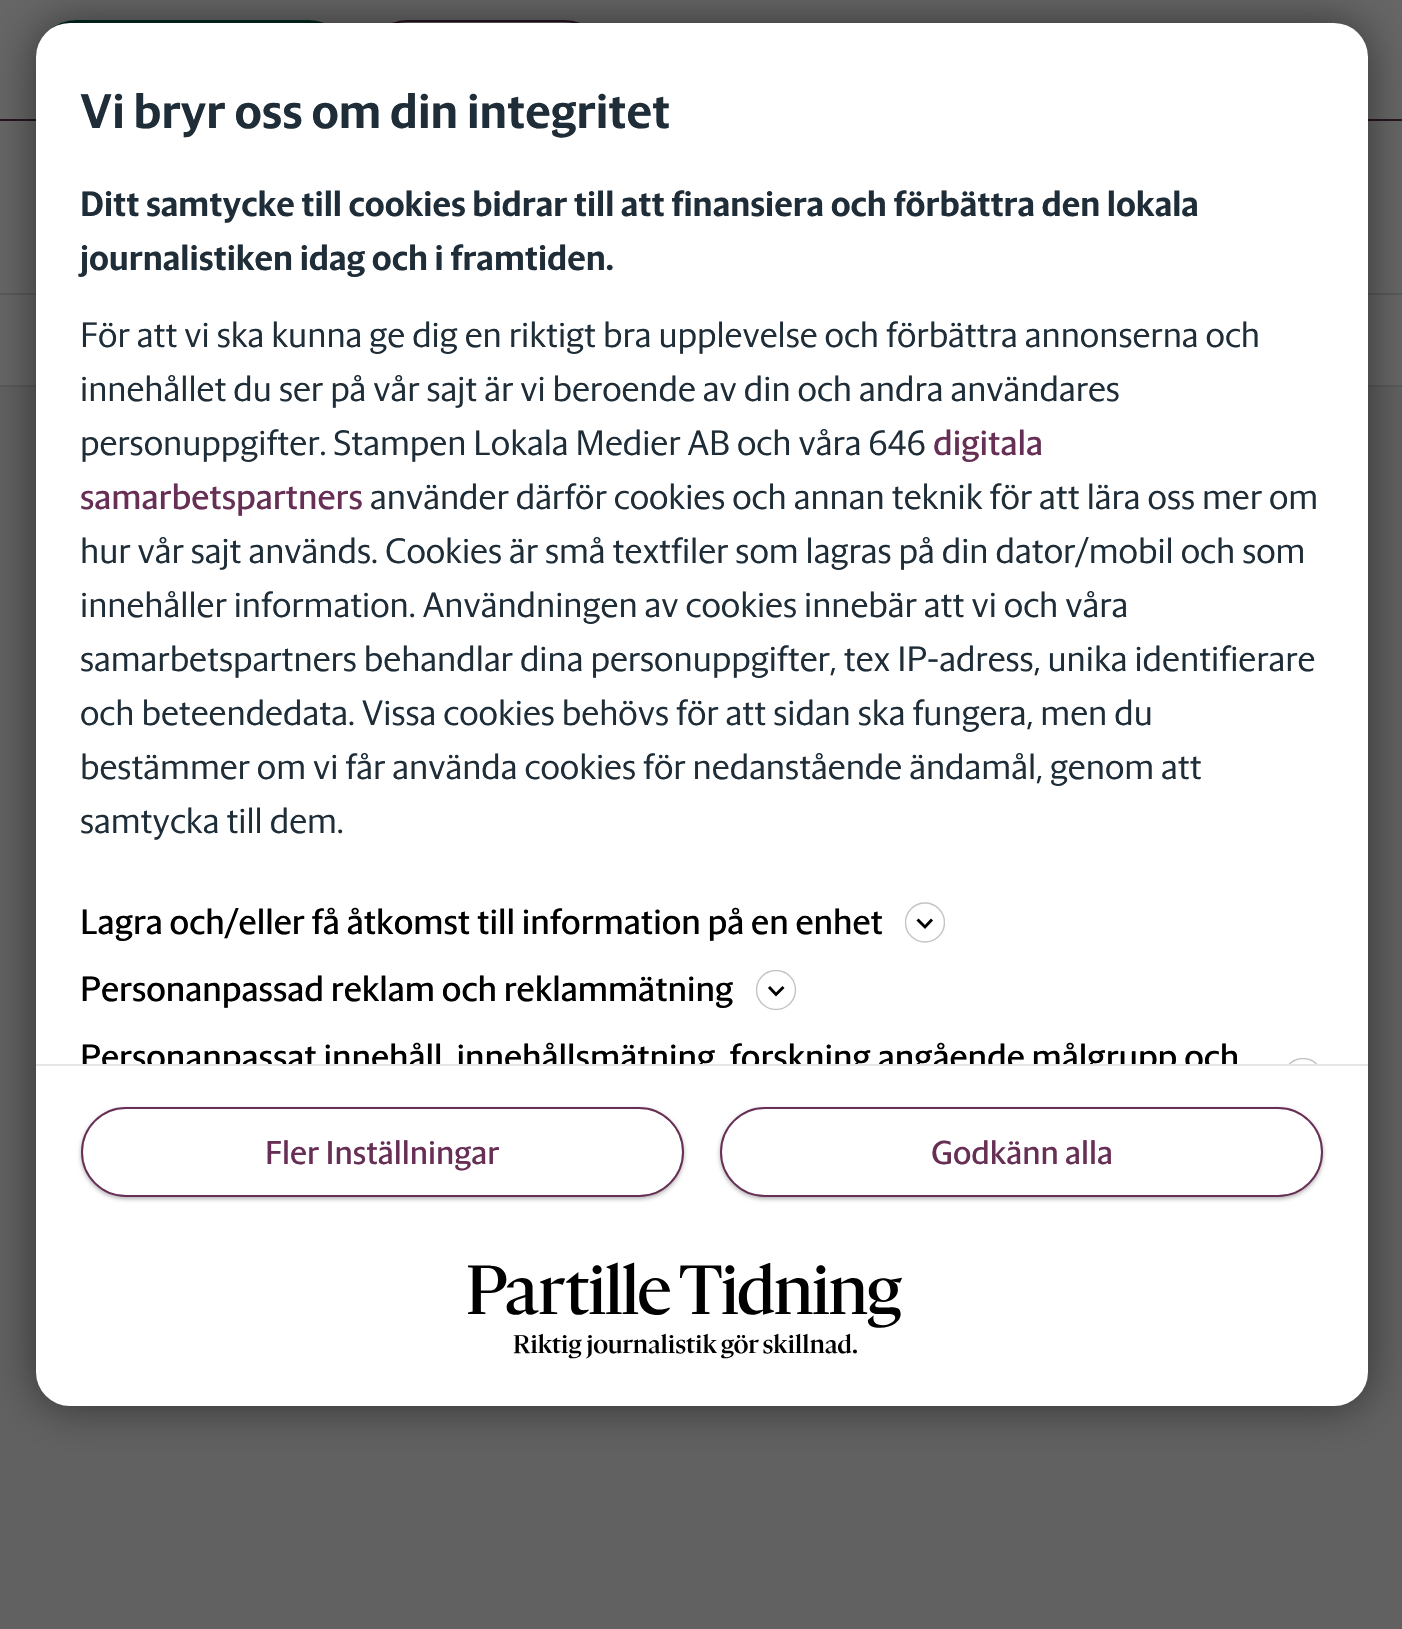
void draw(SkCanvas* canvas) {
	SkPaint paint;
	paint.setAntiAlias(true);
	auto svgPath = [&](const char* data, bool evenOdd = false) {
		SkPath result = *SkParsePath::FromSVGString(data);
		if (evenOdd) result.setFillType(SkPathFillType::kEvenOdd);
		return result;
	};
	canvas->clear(0xff616161);
	paint.setColor(0xff666666);
	canvas->drawRect(SkRect::MakeXYWH(0, 0, 1402, 385), paint);
	paint.setColor(0xff585a5a);
	canvas->drawRect(SkRect::MakeXYWH(0, 385, 1402, 2), paint);
	paint.setColor(0xff291322);
	canvas->drawRect(SkRect::MakeXYWH(0, 119, 1402, 2), paint);
	paint.setColor(0xff002a20);
	canvas->drawRoundRect(SkRect::MakeXYWH(37, 21, 311, 79), 39.5, 39.5, paint);
	paint.setStroke(true);
	paint.setStrokeWidth(2);
	canvas->drawRoundRect(SkRect::MakeXYWH(37, 21, 311, 79), 39.5, 39.5, paint);
	paint.setColor(0xff291322);
	canvas->drawRoundRect(SkRect::MakeXYWH(368, 21, 236, 79), 39.5, 39.5, paint);
	paint.setStroke(false);
	paint.setColor(0xff585a5a);
	canvas->drawRect(SkRect::MakeXYWH(0, 293, 1402, 2), paint);
	paint.setColor(0x80000000);
	paint.setMaskFilter(SkMaskFilter::MakeBlur(kNormal_SkBlurStyle, 22.5));
	canvas->drawRoundRect(SkRect::MakeXYWH(36, 23, 1332, 1383), 34, 34, paint);
	paint.setMaskFilter(nullptr);
	paint.setColor(0xffffffff);
	canvas->drawRoundRect(SkRect::MakeXYWH(36, 23, 1332, 1383), 34, 34, paint);
	SkFont f1(fontMgr->matchFamilyStyle("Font", SkFontStyle::Bold()), 49.5);
	f1.setSubpixel(true);
	paint.setColor(0xff1e2d37);
	canvas->drawString("Vi bryr oss om din integritet", 80, 128, f1, paint);
	SkFont f2(fontMgr->matchFamilyStyle("Font", SkFontStyle::Bold()), 36);
	f2.setSubpixel(true);
	canvas->drawString("Ditt samtycke till cookies bidrar till att finansiera och förbättra den lokala", 80, 216, f2, paint);
	canvas->drawString("journalistiken idag och i framtiden.", 80, 270, f2, paint);
	SkFont f3(fontMgr->matchFamilyStyle("Font", SkFontStyle(300, SkFontStyle::kNormal_Width, SkFontStyle::kUpright_Slant)), 36);
	f3.setSubpixel(true);
	canvas->drawString("För att vi ska kunna ge dig en riktigt bra upplevelse och förbättra annonserna och", 80, 347, f3, paint);
	canvas->drawString("innehållet du ser på vår sajt är vi beroende av din och andra användares", 80, 401, f3, paint);
	canvas->drawString("personuppgifter. Stampen Lokala Medier AB och våra 646", 80, 455, f3, paint);
	SkFont f4(fontMgr->matchFamilyStyle("Font", SkFontStyle(500, SkFontStyle::kNormal_Width, SkFontStyle::kUpright_Slant)), 36);
	f4.setSubpixel(true);
	paint.setColor(0xff672f55);
	canvas->drawString("digitala", 933, 455, f4, paint);
	canvas->drawString("samarbetspartners", 80, 509, f4, paint);
	paint.setColor(0xff1e2d37);
	canvas->drawString("använder därför cookies och annan teknik för att lära oss mer om", 370, 509, f3, paint);
	canvas->drawString("hur vår sajt används. Cookies är små textfiler som lagras på din dator/mobil och som", 80, 563, f3, paint);
	canvas->drawString("innehåller information. Användningen av cookies innebär att vi och våra", 80, 617, f3, paint);
	canvas->drawString("samarbetspartners behandlar dina personuppgifter, tex IP-adress, unika identifierare", 80, 671, f3, paint);
	canvas->drawString("och beteendedata. Vissa cookies behövs för att sidan ska fungera, men du", 80, 725, f3, paint);
	canvas->drawString("bestämmer om vi får använda cookies för nedanstående ändamål, genom att", 80, 779, f3, paint);
	canvas->drawString("samtycka till dem.", 80, 833, f3, paint);
	paint.setColor(0xff000000);
	canvas->drawString("Lagra och/eller få åtkomst till information på en enhet", 80, 934, f4, paint);
	paint.setStroke(true);
	paint.setStrokeWidth(2.9);
	canvas->drawPath(svgPath("M917.5 919.5L925 927L932 919.5"), paint);
	canvas->save();
	canvas->clipRect(SkRect::MakeXYWH(905, 902, 40, 41));
	paint.setStrokeWidth(1.4);
	paint.setColor(0xffc4c4c4);
	canvas->drawCircle(925, 922.5, 19.5, paint);
	canvas->restore();
	paint.setStroke(false);
	paint.setColor(0xff000000);
	canvas->drawString("Personanpassad reklam och reklammätning", 80, 1001, f4, paint);
	paint.setStroke(true);
	paint.setStrokeWidth(2.9);
	canvas->drawPath(svgPath("M769 987L776 994.5L783.5 987"), paint);
	canvas->save();
	canvas->clipRect(SkRect::MakeXYWH(756, 970, 41, 40));
	paint.setStrokeWidth(1.4);
	paint.setColor(0xffc4c4c4);
	canvas->drawCircle(776, 990, 19.5, paint);
	canvas->restore();
	canvas->save();
	canvas->clipRect(SkRect::MakeXYWH(36, 79, 1332, 985));
	paint.setStroke(false);
	paint.setColor(0xff000000);
	canvas->drawString("Personanpassat innehåll, innehållsmätning, forskning angående målgrupp och", 80, 1069, f4, paint);
	canvas->restore();
	canvas->save();
	canvas->clipRect(SkRect::MakeXYWH(1283, 1058, 40, 6));
	paint.setStroke(true);
	paint.setColor(0xffc4c4c4);
	canvas->drawCircle(1303, 1078, 19.5, paint);
	canvas->restore();
	paint.setStroke(false);
	paint.setColor(0xffe6e6e6);
	canvas->drawRect(SkRect::MakeXYWH(36, 1064, 1332, 2), paint);
	paint.setColor(0x4d000000);
	paint.setMaskFilter(SkMaskFilter::MakeBlur(kNormal_SkBlurStyle, 2));
	canvas->drawRoundRect(SkRect::MakeXYWH(81, 1109, 603, 90), 45, 45, paint);
	paint.setMaskFilter(nullptr);
	paint.setColor(0xffffffff);
	canvas->drawRoundRect(SkRect::MakeXYWH(82, 1108, 601, 88), 44, 44, paint);
	paint.setStroke(true);
	paint.setStrokeWidth(2);
	paint.setColor(0xff672f55);
	canvas->drawRoundRect(SkRect::MakeXYWH(82, 1108, 601, 88), 44, 44, paint);
	SkFont f5(fontMgr->matchFamilyStyle("Font", SkFontStyle(500, SkFontStyle::kNormal_Width, SkFontStyle::kUpright_Slant)), 33.75);
	f5.setSubpixel(true);
	paint.setStroke(false);
	canvas->drawString("Fler Inställningar", 265, 1164, f5, paint);
	paint.setColor(0x4d000000);
	paint.setMaskFilter(SkMaskFilter::MakeBlur(kNormal_SkBlurStyle, 2));
	canvas->drawRoundRect(SkRect::MakeXYWH(720, 1109, 603, 90), 45, 45, paint);
	paint.setMaskFilter(nullptr);
	paint.setColor(0xffffffff);
	canvas->drawRoundRect(SkRect::MakeXYWH(721, 1108, 601, 88), 44, 44, paint);
	paint.setStroke(true);
	paint.setColor(0xff672f55);
	canvas->drawRoundRect(SkRect::MakeXYWH(721, 1108, 601, 88), 44, 44, paint);
	paint.setStroke(false);
	canvas->drawString("Godkänn alla", 931, 1164, f5, paint);
	canvas->drawImageRect(SkImages::DeferredFromEncodedData(SkData::MakeFromFileName("img1.png")), SkRect::MakeXYWH(468, 1262, 434, 97), SkSamplingOptions());
}
